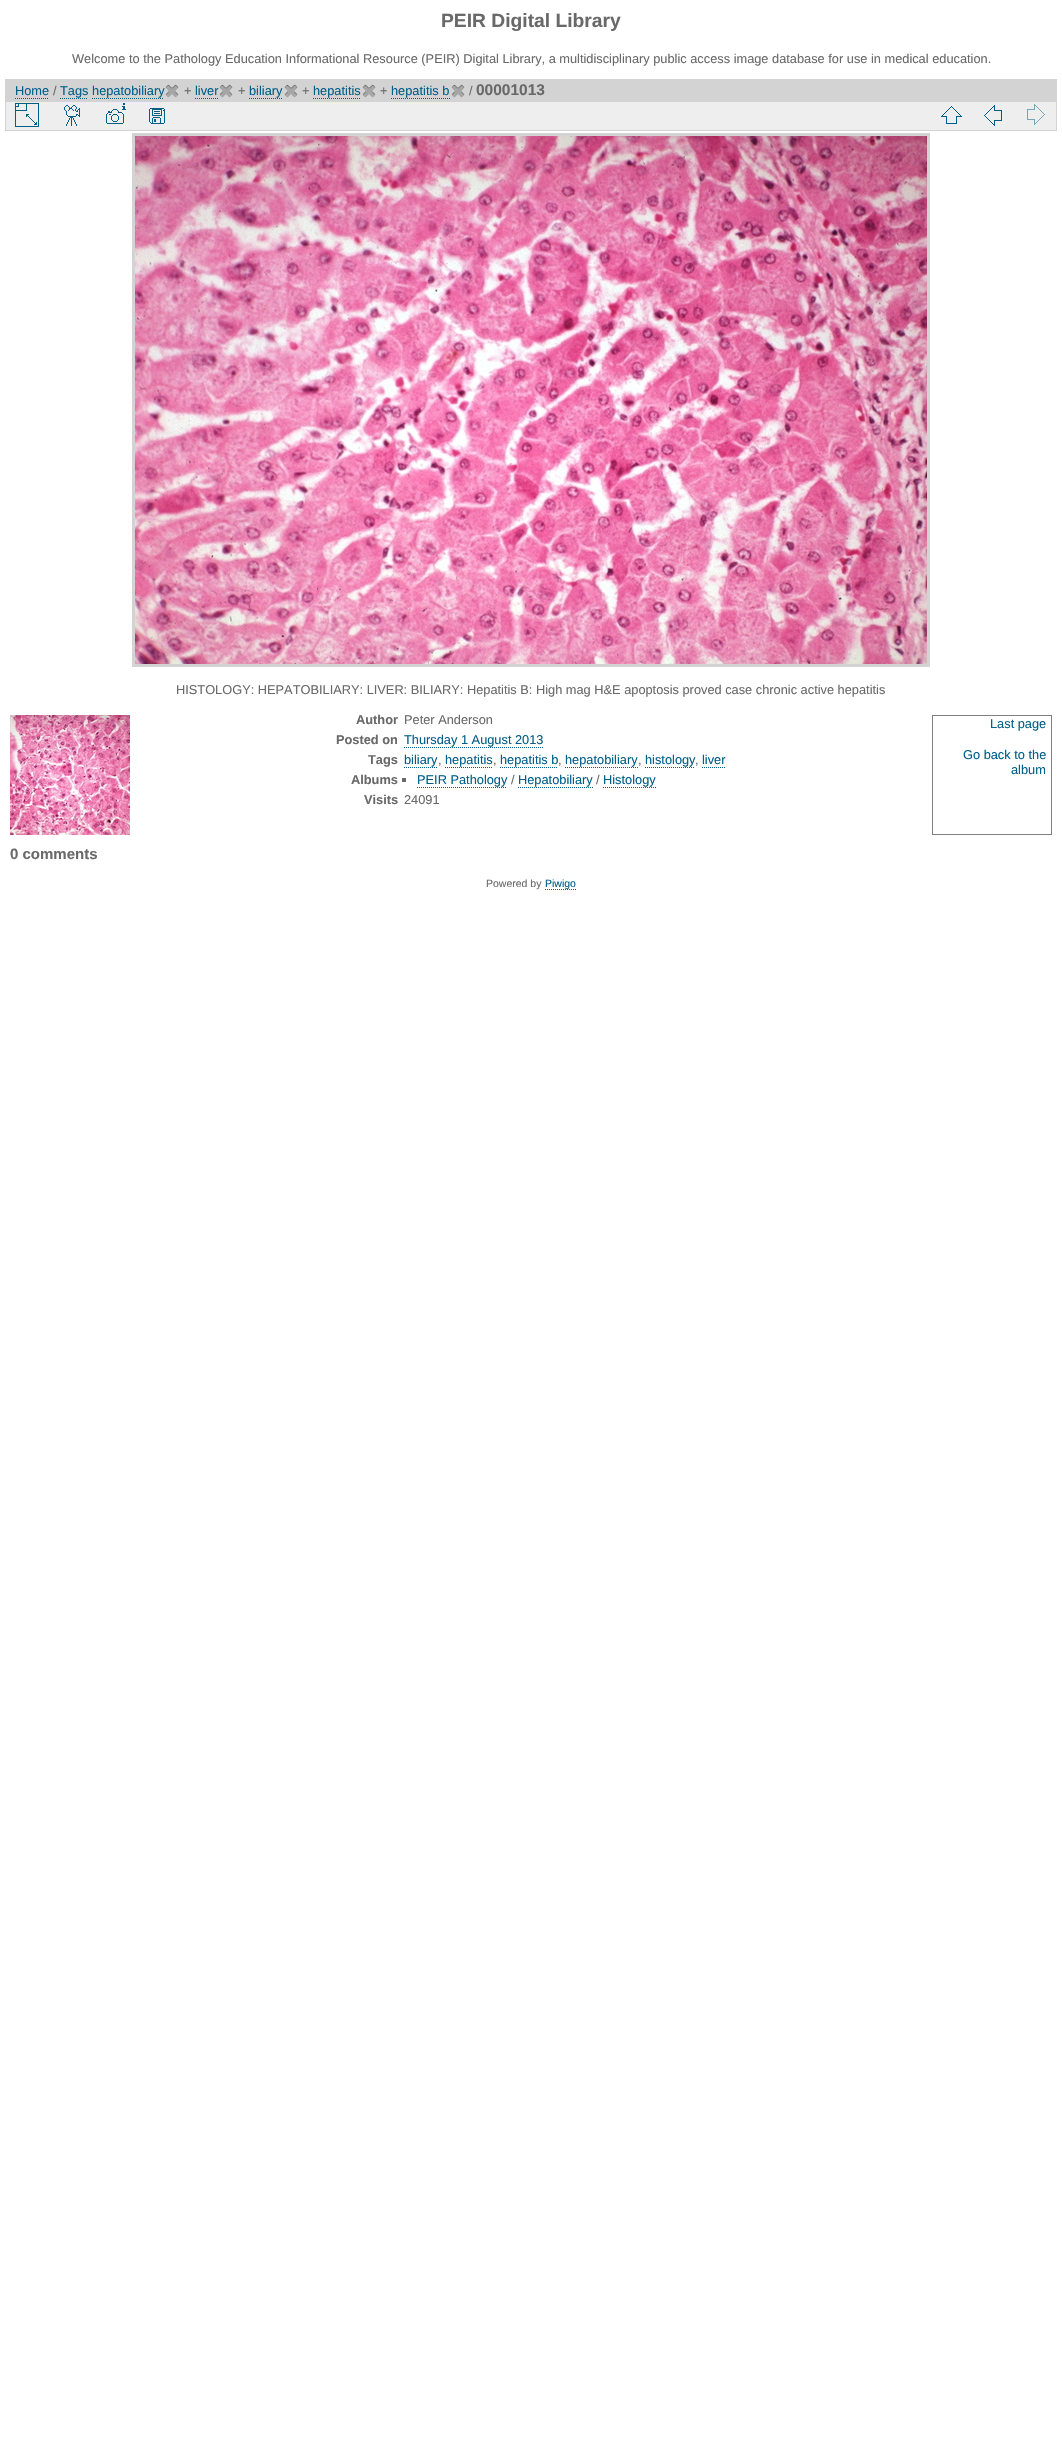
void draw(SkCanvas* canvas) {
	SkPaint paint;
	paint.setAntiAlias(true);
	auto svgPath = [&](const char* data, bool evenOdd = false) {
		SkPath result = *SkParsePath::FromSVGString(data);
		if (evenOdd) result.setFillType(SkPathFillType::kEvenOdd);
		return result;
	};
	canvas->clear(0xffffffff);
	SkFont f1(fontMgr->matchFamilyStyle("Liberation Sans", SkFontStyle::Bold()), 19.25);
	f1.setSubpixel(true);
	paint.setColor(0xff696969);
	canvas->drawString("PEIR Digital Library", 441, 27, f1, paint);
	SkFont f2(fontMgr->matchFamilyStyle("Liberation Sans", SkFontStyle::Normal()), 12.8);
	f2.setSubpixel(true);
	canvas->drawString("Welcome to the Pathology Education Informational Resource (PEIR) Digital Library, a multidisciplinary public access image database for use in medical education.", 72, 63, f2, paint);
	paint.setColor(0xffd3d3d3);
	canvas->drawRect(SkRect::MakeXYWH(5, 79, 1052, 22), paint);
	paint.setColor(0xff005e89);
	canvas->drawString("Home", 15, 95, f2, paint);
	paint.setStroke(true);
	paint.setStrokeWidth(1);
	paint.setPathEffect(SkDashPathEffect::Make({{1, 1}}, 0));
	canvas->drawPath(svgPath("M15 98.5H49"), paint);
	paint.setPathEffect(nullptr);
	paint.setStroke(false);
	paint.setColor(0xff696969);
	canvas->drawString("/", 53, 95, f2, paint);
	paint.setColor(0xff005e89);
	canvas->drawString("Tags hepatobiliary", 60, 95, f2, paint);
	paint.setStroke(true);
	paint.setPathEffect(SkDashPathEffect::Make({{1, 1}}, 0));
	canvas->drawPath(svgPath("M60 98.5H88"), paint);
	paint.setPathEffect(nullptr);
	canvas->drawImageRect(SkImages::DeferredFromEncodedData(SkData::MakeFromFileName("img1.png")), SkRect::MakeXYWH(165, 84, 14, 14), SkSamplingOptions());
	paint.setStroke(false);
	paint.setColor(0xff696969);
	canvas->drawString("+", 184, 95, f2, paint);
	paint.setColor(0xff005e89);
	canvas->drawString("liver", 195, 95, f2, paint);
	paint.setStroke(true);
	paint.setPathEffect(SkDashPathEffect::Make({{1, 1}}, 0));
	canvas->drawPath(svgPath("M195 98.5H218"), paint);
	paint.setPathEffect(nullptr);
	canvas->drawImageRect(SkImages::DeferredFromEncodedData(SkData::MakeFromFileName("img1.png")), SkRect::MakeXYWH(219, 84, 14, 14), SkSamplingOptions());
	paint.setStroke(false);
	paint.setColor(0xff696969);
	canvas->drawString("+", 238, 95, f2, paint);
	paint.setColor(0xff005e89);
	canvas->drawString("biliary", 249, 95, f2, paint);
	paint.setStroke(true);
	paint.setPathEffect(SkDashPathEffect::Make({{1, 1}}, 0));
	canvas->drawPath(svgPath("M249 98.5H283"), paint);
	paint.setPathEffect(nullptr);
	canvas->drawImageRect(SkImages::DeferredFromEncodedData(SkData::MakeFromFileName("img1.png")), SkRect::MakeXYWH(284, 84, 14, 14), SkSamplingOptions());
	paint.setStroke(false);
	paint.setColor(0xff696969);
	canvas->drawString("+", 302, 95, f2, paint);
	paint.setColor(0xff005e89);
	canvas->drawString("hepatitis", 313, 95, f2, paint);
	paint.setStroke(true);
	paint.setPathEffect(SkDashPathEffect::Make({{1, 1}}, 0));
	canvas->drawPath(svgPath("M313 98.5H361"), paint);
	paint.setPathEffect(nullptr);
	canvas->drawImageRect(SkImages::DeferredFromEncodedData(SkData::MakeFromFileName("img1.png")), SkRect::MakeXYWH(362, 84, 14, 14), SkSamplingOptions());
	paint.setStroke(false);
	paint.setColor(0xff696969);
	canvas->drawString("+", 380, 95, f2, paint);
	paint.setColor(0xff005e89);
	canvas->drawString("hepatitis b", 391, 95, f2, paint);
	paint.setStroke(true);
	paint.setPathEffect(SkDashPathEffect::Make({{1, 1}}, 0));
	canvas->drawPath(svgPath("M391 98.5H450"), paint);
	paint.setPathEffect(nullptr);
	canvas->drawImageRect(SkImages::DeferredFromEncodedData(SkData::MakeFromFileName("img1.png")), SkRect::MakeXYWH(451, 84, 14, 14), SkSamplingOptions());
	paint.setStroke(false);
	paint.setColor(0xff696969);
	canvas->drawString("/", 469, 95, f2, paint);
	SkFont f3(fontMgr->matchFamilyStyle("Liberation Sans", SkFontStyle::Bold()), 15.5);
	f3.setSubpixel(true);
	canvas->drawString("00001013", 476, 95, f3, paint);
	paint.setStroke(true);
	paint.setColor(0xff005e89);
	paint.setPathEffect(SkDashPathEffect::Make({{1, 1}}, 0));
	canvas->drawPath(svgPath("M92 98.5H164"), paint);
	paint.setPathEffect(nullptr);
	paint.setStroke(false);
	paint.setColor(0xffeeeeee);
	canvas->drawRect(SkRect::MakeXYWH(5.5, 101.5, 1051, 29), paint);
	paint.setStroke(true);
	paint.setColor(0xffd3d3d3);
	canvas->drawRect(SkRect::MakeXYWH(5.5, 101.5, 1051, 29), paint);
	canvas->drawImageRect(SkImages::DeferredFromEncodedData(SkData::MakeFromFileName("img2.png")), SkRect::MakeXYWH(15, 103, 24, 24), SkSamplingOptions());
	canvas->drawImageRect(SkImages::DeferredFromEncodedData(SkData::MakeFromFileName("img3.png")), SkRect::MakeXYWH(64, 105, 16, 21), SkSamplingOptions());
	canvas->drawImageRect(SkImages::DeferredFromEncodedData(SkData::MakeFromFileName("img4.png")), SkRect::MakeXYWH(106, 103, 20, 21), SkSamplingOptions());
	canvas->drawImageRect(SkImages::DeferredFromEncodedData(SkData::MakeFromFileName("img5.png")), SkRect::MakeXYWH(149, 108, 16, 16), SkSamplingOptions());
	canvas->drawImageRect(SkImages::DeferredFromEncodedData(SkData::MakeFromFileName("img6.png")), SkRect::MakeXYWH(941, 106, 21, 18), SkSamplingOptions());
	canvas->drawImageRect(SkImages::DeferredFromEncodedData(SkData::MakeFromFileName("img7.png")), SkRect::MakeXYWH(984, 105, 18, 21), SkSamplingOptions());
	canvas->drawImageRect(SkImages::DeferredFromEncodedData(SkData::MakeFromFileName("img8.png")), SkRect::MakeXYWH(1027, 104, 18, 21), SkSamplingOptions());
	paint.setStrokeWidth(3);
	canvas->drawRect(SkRect::MakeXYWH(133.5, 134.5, 795, 531), paint);
	canvas->drawImageRect(SkImages::DeferredFromEncodedData(SkData::MakeFromFileName("img9.png")), SkRect::MakeXYWH(135, 136, 792, 528), SkSamplingOptions());
	paint.setStroke(false);
	paint.setColor(0xff696969);
	canvas->drawString("HISTOLOGY: HEPATOBILIARY: LIVER: BILIARY: Hepatitis B: High mag H&E apoptosis proved case chronic active hepatitis", 176, 694, f2, paint);
	SkFont f4(fontMgr->matchFamilyStyle("Liberation Sans", SkFontStyle::Bold()), 12.8);
	f4.setSubpixel(true);
	canvas->drawString("Author", 356, 724, f4, paint);
	canvas->drawString("Peter Anderson", 404, 724, f2, paint);
	canvas->drawString("Posted on", 336, 744, f4, paint);
	paint.setColor(0xff005e89);
	canvas->drawString("Thursday 1 August 2013", 404, 744, f2, paint);
	paint.setStroke(true);
	paint.setStrokeWidth(1);
	paint.setPathEffect(SkDashPathEffect::Make({{1, 1}}, 0));
	canvas->drawPath(svgPath("M404 747.5H544"), paint);
	paint.setPathEffect(nullptr);
	paint.setStroke(false);
	paint.setColor(0xff696969);
	canvas->drawString("Tags", 368, 764, f4, paint);
	paint.setColor(0xff005e89);
	canvas->drawString("biliary", 404, 764, f2, paint);
	paint.setStroke(true);
	paint.setPathEffect(SkDashPathEffect::Make({{1, 1}}, 0));
	canvas->drawPath(svgPath("M404 767.5H438"), paint);
	paint.setPathEffect(nullptr);
	paint.setStroke(false);
	paint.setColor(0xff696969);
	canvas->drawString(",", 438, 764, f2, paint);
	paint.setColor(0xff005e89);
	canvas->drawString("hepatitis", 445, 764, f2, paint);
	paint.setStroke(true);
	paint.setPathEffect(SkDashPathEffect::Make({{1, 1}}, 0));
	canvas->drawPath(svgPath("M445 767.5H493"), paint);
	paint.setPathEffect(nullptr);
	paint.setStroke(false);
	paint.setColor(0xff696969);
	canvas->drawString(",", 493, 764, f2, paint);
	paint.setColor(0xff005e89);
	canvas->drawString("hepatitis b", 500, 764, f2, paint);
	paint.setStroke(true);
	paint.setPathEffect(SkDashPathEffect::Make({{1, 1}}, 0));
	canvas->drawPath(svgPath("M500 767.5H558"), paint);
	paint.setPathEffect(nullptr);
	paint.setStroke(false);
	paint.setColor(0xff696969);
	canvas->drawString(",", 558, 764, f2, paint);
	paint.setColor(0xff005e89);
	canvas->drawString("hepatobiliary", 565, 764, f2, paint);
	paint.setStroke(true);
	paint.setPathEffect(SkDashPathEffect::Make({{1, 1}}, 0));
	canvas->drawPath(svgPath("M565 767.5H638"), paint);
	paint.setPathEffect(nullptr);
	paint.setStroke(false);
	paint.setColor(0xff696969);
	canvas->drawString(",", 638, 764, f2, paint);
	paint.setColor(0xff005e89);
	canvas->drawString("histology", 645, 764, f2, paint);
	paint.setStroke(true);
	paint.setPathEffect(SkDashPathEffect::Make({{1, 1}}, 0));
	canvas->drawPath(svgPath("M645 767.5H695"), paint);
	paint.setPathEffect(nullptr);
	paint.setStroke(false);
	paint.setColor(0xff696969);
	canvas->drawString(",", 695, 764, f2, paint);
	paint.setColor(0xff005e89);
	canvas->drawString("liver", 702, 764, f2, paint);
	paint.setStroke(true);
	paint.setPathEffect(SkDashPathEffect::Make({{1, 1}}, 0));
	canvas->drawPath(svgPath("M702 767.5H726"), paint);
	paint.setPathEffect(nullptr);
	paint.setStroke(false);
	paint.setColor(0xff696969);
	canvas->drawString("Albums", 351, 784, f4, paint);
	canvas->drawRect(SkRect::MakeXYWH(402, 778, 4, 4), paint);
	paint.setColor(0xff005e89);
	canvas->drawString("PEIR Pathology", 417, 784, f2, paint);
	paint.setStroke(true);
	paint.setPathEffect(SkDashPathEffect::Make({{1, 1}}, 0));
	canvas->drawPath(svgPath("M417 787.5H507"), paint);
	paint.setPathEffect(nullptr);
	paint.setStroke(false);
	paint.setColor(0xff696969);
	canvas->drawString("/", 511, 784, f2, paint);
	paint.setColor(0xff005e89);
	canvas->drawString("Hepatobiliary", 518, 784, f2, paint);
	paint.setStroke(true);
	paint.setPathEffect(SkDashPathEffect::Make({{1, 1}}, 0));
	canvas->drawPath(svgPath("M518 787.5H593"), paint);
	paint.setPathEffect(nullptr);
	paint.setStroke(false);
	paint.setColor(0xff696969);
	canvas->drawString("/", 596, 784, f2, paint);
	paint.setColor(0xff005e89);
	canvas->drawString("Histology", 603, 784, f2, paint);
	paint.setStroke(true);
	paint.setPathEffect(SkDashPathEffect::Make({{1, 1}}, 0));
	canvas->drawPath(svgPath("M603 787.5H656"), paint);
	paint.setPathEffect(nullptr);
	paint.setStroke(false);
	paint.setColor(0xff696969);
	canvas->drawString("Visits", 364, 804, f4, paint);
	canvas->drawString("24091", 404, 804, f2, paint);
	canvas->drawImageRect(SkImages::DeferredFromEncodedData(SkData::MakeFromFileName("img10.png")), SkRect::MakeXYWH(10, 715, 120, 120), SkSamplingOptions());
	paint.setStroke(true);
	paint.setColor(0xff808080);
	canvas->drawRect(SkRect::MakeXYWH(932.5, 715.5, 119, 119), paint);
	paint.setStroke(false);
	paint.setColor(0xff005e89);
	canvas->drawString("Last page", 990, 728, f2, paint);
	canvas->drawString("Go back to the", 963, 759, f2, paint);
	canvas->drawString("album", 1011, 774, f2, paint);
	SkFont f5(fontMgr->matchFamilyStyle("Liberation Sans", SkFontStyle::Bold()), 15);
	f5.setSubpixel(true);
	paint.setColor(0xff696969);
	canvas->drawString("0 comments", 10, 859, f5, paint);
	SkFont f6(fontMgr->matchFamilyStyle("Liberation Sans", SkFontStyle::Normal()), 10.5);
	f6.setSubpixel(true);
	canvas->drawString("Powered by", 486, 887, f6, paint);
	paint.setStroke(true);
	paint.setColor(0xff005e89);
	paint.setPathEffect(SkDashPathEffect::Make({{1, 1}}, 0));
	canvas->drawPath(svgPath("M545 889.5H576"), paint);
	paint.setPathEffect(nullptr);
	paint.setStroke(false);
	canvas->drawString("Piwigo", 545, 887, f6, paint);
}
